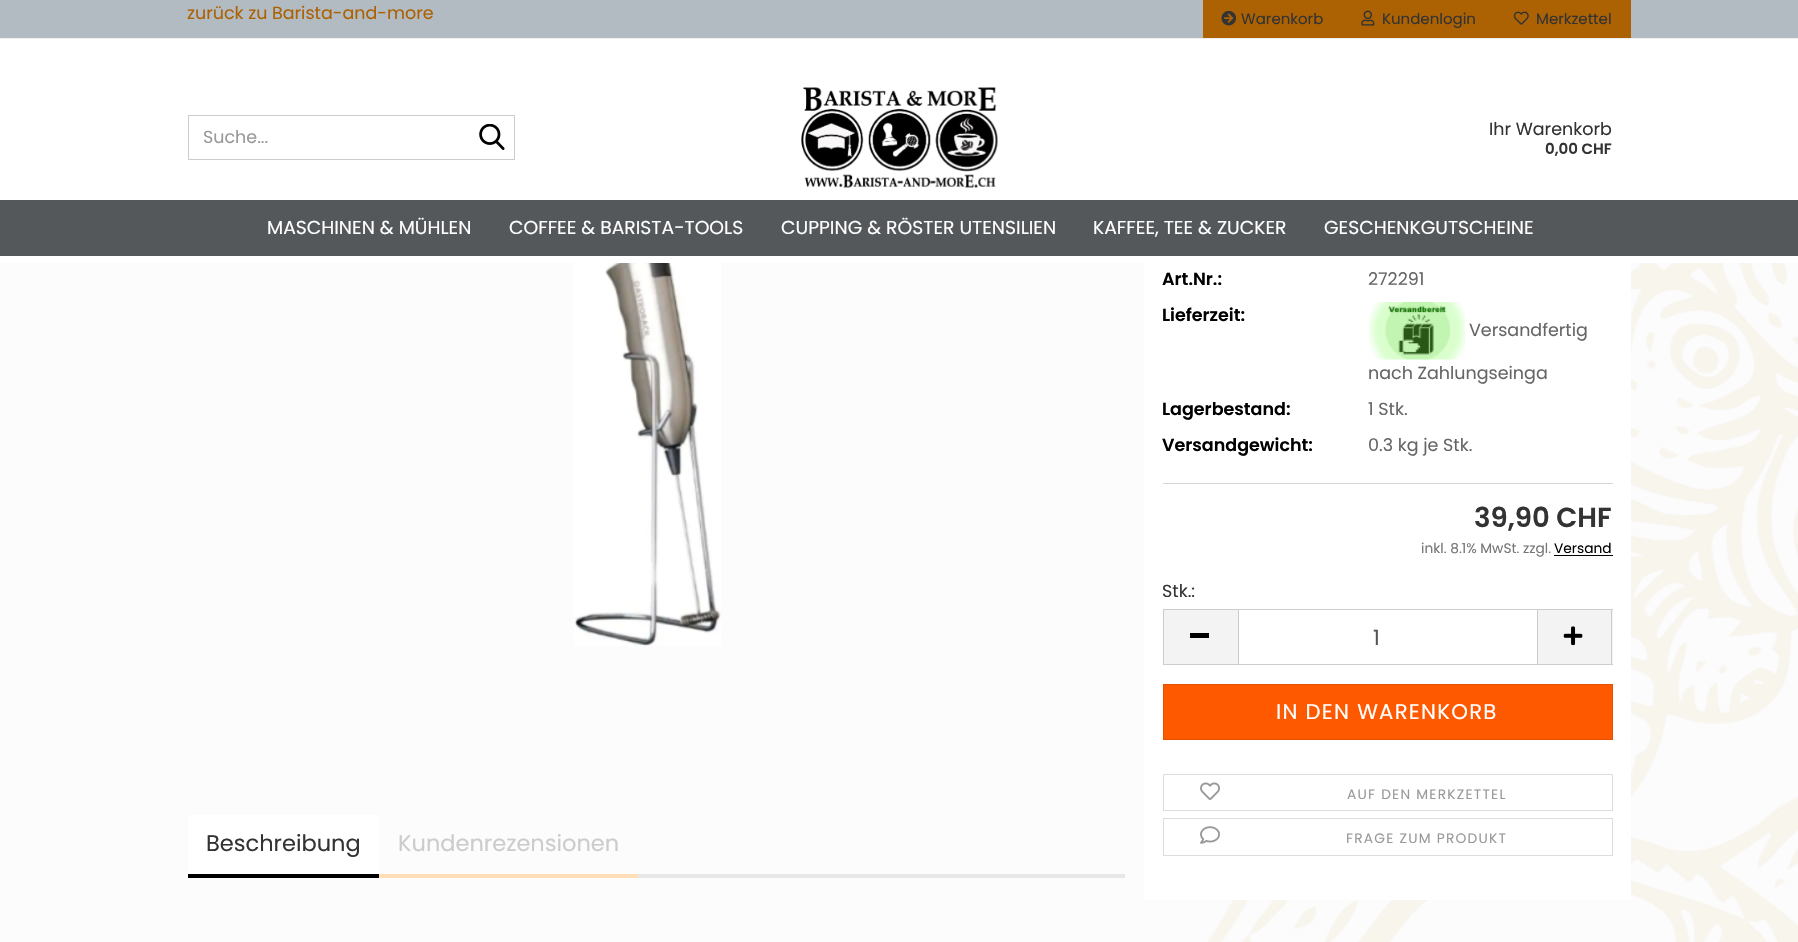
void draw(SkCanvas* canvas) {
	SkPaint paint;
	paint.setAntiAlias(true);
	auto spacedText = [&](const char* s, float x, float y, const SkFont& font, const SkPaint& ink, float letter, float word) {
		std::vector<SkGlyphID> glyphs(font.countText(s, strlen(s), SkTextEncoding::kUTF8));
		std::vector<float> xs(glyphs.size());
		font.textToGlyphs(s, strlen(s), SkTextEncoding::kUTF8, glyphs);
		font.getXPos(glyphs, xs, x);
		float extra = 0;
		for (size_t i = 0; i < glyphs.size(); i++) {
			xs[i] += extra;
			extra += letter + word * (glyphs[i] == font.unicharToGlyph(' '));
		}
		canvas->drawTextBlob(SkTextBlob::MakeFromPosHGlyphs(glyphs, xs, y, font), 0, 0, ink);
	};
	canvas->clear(0xfffcfcfc);
	canvas->drawImageRect(SkImages::DeferredFromEncodedData(SkData::MakeFromFileName("img1.png")), SkRect::MakeXYWH(1207, 263, 591, 679), SkSamplingOptions());
	paint.setColor(0xffffffff);
	canvas->drawRect(SkRect::MakeXYWH(0, 39, 1798, 224), paint);
	paint.setColor(0xffb2bbc1);
	canvas->drawRect(SkRect::MakeXYWH(0, 0, 1798, 38), paint);
	paint.setColor(0xffeeeeee);
	canvas->drawRect(SkRect::MakeXYWH(0, 38, 1798, 1), paint);
	SkFont f1(fontMgr->matchFamilyStyle("Poppins", SkFontStyle::Normal()), 17.5);
	f1.setSubpixel(true);
	paint.setColor(0xffac6102);
	canvas->drawString("zurück zu Barista-and-more", 187, 19, f1, paint);
	canvas->drawRect(SkRect::MakeXYWH(1203, 0, 428, 38), paint);
	canvas->drawImageRect(SkImages::DeferredFromEncodedData(SkData::MakeFromFileName("img2.png")), SkRect::MakeXYWH(1221, 10, 15, 16), SkSamplingOptions());
	SkFont f2(fontMgr->matchFamilyStyle("Poppins", SkFontStyle::Normal()), 15);
	f2.setSubpixel(true);
	paint.setColor(0xff333333);
	canvas->drawString("Warenkorb", 1241, 24, f2, paint);
	canvas->drawImageRect(SkImages::DeferredFromEncodedData(SkData::MakeFromFileName("img3.png")), SkRect::MakeXYWH(1361, 10, 14, 16), SkSamplingOptions());
	canvas->drawString("Kundenlogin", 1382, 24, f2, paint);
	canvas->drawImageRect(SkImages::DeferredFromEncodedData(SkData::MakeFromFileName("img4.png")), SkRect::MakeXYWH(1513, 11, 16, 14), SkSamplingOptions());
	canvas->drawString("Merkzettel", 1536, 24, f2, paint);
	paint.setStroke(true);
	paint.setStrokeWidth(1);
	paint.setColor(0xffcccccc);
	canvas->drawRect(SkRect::MakeXYWH(188.5, 115.5, 326, 44), paint);
	paint.setStroke(false);
	paint.setColor(0xff999999);
	canvas->drawString("Suche...", 203, 143, f1, paint);
	canvas->drawImageRect(SkImages::DeferredFromEncodedData(SkData::MakeFromFileName("img5.png")), SkRect::MakeXYWH(479, 124, 26, 26), SkSamplingOptions());
	canvas->drawImageRect(SkImages::DeferredFromEncodedData(SkData::MakeFromFileName("img6.png")), SkRect::MakeXYWH(801, 87, 197, 101), SkSamplingOptions());
	paint.setColor(0xff333333);
	canvas->drawString("Ihr Warenkorb", 1489, 135, f1, paint);
	SkFont f3(fontMgr->matchFamilyStyle("Poppins", SkFontStyle(600, SkFontStyle::kNormal_Width, SkFontStyle::kUpright_Slant)), 15);
	f3.setSubpixel(true);
	canvas->drawString("0,00 CHF", 1545, 154, f3, paint);
	paint.setColor(0xff54585b);
	canvas->drawRect(SkRect::MakeXYWH(0, 200, 1798, 56), paint);
	SkFont f4(fontMgr->matchFamilyStyle("Poppins", SkFontStyle::Normal()), 18.75);
	f4.setSubpixel(true);
	paint.setColor(0xffffffff);
	canvas->drawString("MASCHINEN & MÜHLEN", 267, 234, f4, paint);
	canvas->drawString("COFFEE & BARISTA-TOOLS", 509, 234, f4, paint);
	canvas->drawString("CUPPING & RÖSTER UTENSILIEN", 781, 234, f4, paint);
	canvas->drawString("KAFFEE, TEE & ZUCKER", 1093, 234, f4, paint);
	canvas->drawString("GESCHENKGUTSCHEINE", 1324, 234, f4, paint);
	paint.setColor(0xffe7e7e7);
	canvas->drawRect(SkRect::MakeXYWH(638, 874, 487, 4), paint);
	paint.setColor(0xffffffff);
	canvas->drawRect(SkRect::MakeXYWH(188, 815, 191, 59), paint);
	paint.setColor(0xff000000);
	canvas->drawRect(SkRect::MakeXYWH(188, 874, 191, 4), paint);
	SkFont f5(fontMgr->matchFamilyStyle("Poppins", SkFontStyle::Normal()), 22.5);
	f5.setSubpixel(true);
	paint.setColor(0xff333333);
	canvas->drawString("Beschreibung", 206, 851, f5, paint);
	paint.setColor(0xfffedfb7);
	canvas->drawRect(SkRect::MakeXYWH(379, 874, 259, 4), paint);
	paint.setColor(0xffcccccc);
	canvas->drawString("Kundenrezensionen", 398, 851, f5, paint);
	canvas->drawImageRect(SkImages::DeferredFromEncodedData(SkData::MakeFromFileName("img7.png")), SkRect::MakeXYWH(574, 263, 147, 383), SkSamplingOptions());
	paint.setColor(0xffffffff);
	canvas->drawRect(SkRect::MakeXYWH(1144, 263, 487, 637), paint);
	paint.setColor(0xffd5d5d5);
	canvas->drawRect(SkRect::MakeXYWH(1163, 483, 450, 1), paint);
	SkFont f6(fontMgr->matchFamilyStyle("Poppins", SkFontStyle(600, SkFontStyle::kNormal_Width, SkFontStyle::kUpright_Slant)), 17.5);
	f6.setSubpixel(true);
	paint.setColor(0xff000000);
	canvas->drawString("Art.Nr.:", 1162, 285, f6, paint);
	paint.setColor(0xff666666);
	canvas->drawString("272291", 1368, 285, f1, paint);
	paint.setColor(0xff000000);
	canvas->drawString("Lieferzeit:", 1162, 321, f6, paint);
	canvas->drawImageRect(SkImages::DeferredFromEncodedData(SkData::MakeFromFileName("img8.png")), SkRect::MakeXYWH(1368, 302, 97, 58), SkSamplingOptions());
	paint.setColor(0xff666666);
	canvas->drawString("Versandfertig", 1469, 336, f1, paint);
	canvas->drawString("nach Zahlungseinga", 1368, 379, f1, paint);
	paint.setColor(0xff000000);
	canvas->drawString("Lagerbestand:", 1162, 415, f6, paint);
	paint.setColor(0xff666666);
	canvas->drawString("1 Stk.", 1368, 415, f1, paint);
	paint.setColor(0xff000000);
	canvas->drawString("Versandgewicht:", 1162, 451, f6, paint);
	paint.setColor(0xff666666);
	canvas->drawString("0.3 kg je Stk.", 1368, 451, f1, paint);
	SkFont f7(fontMgr->matchFamilyStyle("Poppins", SkFontStyle(600, SkFontStyle::kNormal_Width, SkFontStyle::kUpright_Slant)), 27.5);
	f7.setSubpixel(true);
	paint.setColor(0xff333333);
	canvas->drawString("39,90 CHF", 1474, 527, f7, paint);
	SkFont f8(fontMgr->matchFamilyStyle("Poppins", SkFontStyle::Normal()), 13.75);
	f8.setSubpixel(true);
	paint.setColor(0xff777777);
	canvas->drawString("inkl. 8.1% MwSt. zzgl.", 1421, 553, f8, paint);
	paint.setColor(0xff000000);
	canvas->drawString("Versand", 1554, 553, f8, paint);
	canvas->drawRect(SkRect::MakeXYWH(1554, 555, 59, 1), paint);
	paint.setColor(0xff333333);
	canvas->drawString("Stk.:", 1162, 597, f1, paint);
	paint.setColor(0xfff3f3f3);
	canvas->drawRect(SkRect::MakeXYWH(1164, 610, 74, 54), paint);
	paint.setColor(0xffcccccc);
	canvas->drawRect(SkRect::MakeXYWH(1163, 609, 75, 1), paint);
	canvas->drawRect(SkRect::MakeXYWH(1163, 664, 75, 1), paint);
	canvas->drawRect(SkRect::MakeXYWH(1163, 609, 1, 56), paint);
	paint.setColor(0xff000000);
	canvas->drawRect(SkRect::MakeXYWH(1190, 633, 19, 5), paint);
	paint.setStroke(true);
	paint.setColor(0xffcccccc);
	canvas->drawRect(SkRect::MakeXYWH(1238.5, 609.5, 299, 55), paint);
	SkFont f9(fontMgr->matchFamilyStyle("Poppins", SkFontStyle::Normal()), 21.25);
	f9.setSubpixel(true);
	paint.setStroke(false);
	paint.setColor(0xff555555);
	canvas->drawString("1", 1373, 645, f9, paint);
	paint.setColor(0xfff3f3f3);
	canvas->drawRect(SkRect::MakeXYWH(1538, 610, 75, 54), paint);
	paint.setColor(0xffcccccc);
	canvas->drawRect(SkRect::MakeXYWH(1538, 609, 75, 1), paint);
	canvas->drawRect(SkRect::MakeXYWH(1611, 609, 1, 56), paint);
	canvas->drawRect(SkRect::MakeXYWH(1538, 664, 75, 1), paint);
	canvas->drawImageRect(SkImages::DeferredFromEncodedData(SkData::MakeFromFileName("img9.png")), SkRect::MakeXYWH(1563, 626, 20, 20), SkSamplingOptions());
	paint.setColor(0xffff5900);
	canvas->drawRect(SkRect::MakeXYWH(1163.5, 684.5, 449, 55), paint);
	paint.setStroke(true);
	paint.setColor(0xffe65000);
	canvas->drawRect(SkRect::MakeXYWH(1163.5, 684.5, 449, 55), paint);
	paint.setStroke(false);
	paint.setColor(0xffffffff);
	spacedText("IN DEN WARENKORB", 1276, 719, f9, paint, 1.25, 0);
	paint.setStroke(true);
	paint.setColor(0xffdddddd);
	canvas->drawRect(SkRect::MakeXYWH(1163.5, 774.5, 449, 36), paint);
	canvas->drawImageRect(SkImages::DeferredFromEncodedData(SkData::MakeFromFileName("img10.png")), SkRect::MakeXYWH(1200, 782, 20, 18), SkSamplingOptions());
	paint.setStroke(false);
	paint.setColor(0xff999999);
	spacedText("AUF DEN MERKZETTEL", 1347, 799, f8, paint, 1.25, 0);
	paint.setStroke(true);
	paint.setColor(0xffdddddd);
	canvas->drawRect(SkRect::MakeXYWH(1163.5, 818.5, 449, 37), paint);
	canvas->drawImageRect(SkImages::DeferredFromEncodedData(SkData::MakeFromFileName("img11.png")), SkRect::MakeXYWH(1200, 826, 20, 18), SkSamplingOptions());
	paint.setStroke(false);
	paint.setColor(0xff999999);
	spacedText("FRAGE ZUM PRODUKT", 1346, 843, f8, paint, 1.25, 0);
}
